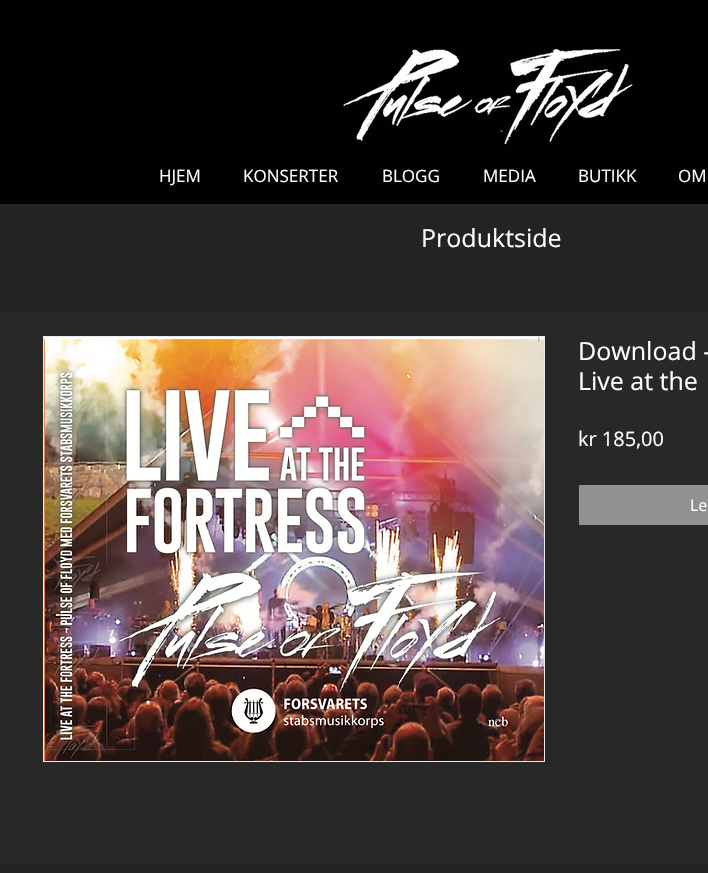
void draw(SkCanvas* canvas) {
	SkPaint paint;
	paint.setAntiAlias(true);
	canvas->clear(0xff242323);
	paint.setColor(0xff010101);
	canvas->drawRect(SkRect::MakeXYWH(0, 0, 708, 204), paint);
	canvas->drawImageRect(SkImages::DeferredFromEncodedData(SkData::MakeFromFileName("img1.png")), SkRect::MakeXYWH(343, 48, 290, 97), SkSamplingOptions());
	SkFont f1(fontMgr->matchFamilyStyle("Open Sans", SkFontStyle::Normal()), 17);
	f1.setSubpixel(true);
	paint.setColor(0xffffffff);
	canvas->drawString("HJEM", 159, 182, f1, paint);
	canvas->drawString("KONSERTER", 243, 182, f1, paint);
	canvas->drawString("BLOGG", 382, 182, f1, paint);
	canvas->drawString("MEDIA", 483, 182, f1, paint);
	canvas->drawString("BUTIKK", 578, 182, f1, paint);
	canvas->drawString("OM", 678, 182, f1, paint);
	SkFont f2(fontMgr->matchFamilyStyle("Open Sans", SkFontStyle::Normal()), 25);
	f2.setSubpixel(true);
	canvas->drawString("Produktside", 421, 247, f2, paint);
	paint.setColor(0xff282828);
	canvas->drawRect(SkRect::MakeXYWH(0, 311, 708, 554), paint);
	paint.setStroke(true);
	paint.setStrokeWidth(1);
	paint.setColor(0xffececec);
	canvas->drawRect(SkRect::MakeXYWH(43.5, 336.5, 501, 425), paint);
	canvas->drawImageRect(SkImages::DeferredFromEncodedData(SkData::MakeFromFileName("img2.png")), SkRect::MakeXYWH(44, 337, 500, 424), SkSamplingOptions());
	paint.setStroke(false);
	paint.setColor(0xffffffff);
	canvas->drawString("Download -", 578, 360, f2, paint);
	canvas->drawString("Live at the", 578, 390, f2, paint);
	SkFont f3(fontMgr->matchFamilyStyle("Open Sans", SkFontStyle::Normal()), 20);
	f3.setSubpixel(true);
	canvas->drawString("kr 185,00", 578, 446, f3, paint);
	paint.setColor(0xff919191);
	canvas->drawRect(SkRect::MakeXYWH(578.5, 484.5, 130, 41), paint);
	paint.setStroke(true);
	paint.setColor(0xff2b2b2b);
	canvas->drawRect(SkRect::MakeXYWH(578.5, 484.5, 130, 41), paint);
	SkFont f4(fontMgr->matchFamilyStyle("Open Sans", SkFontStyle::Normal()), 16);
	f4.setSubpixel(true);
	paint.setStroke(false);
	paint.setColor(0xffffffff);
	canvas->drawString("Le", 690, 511, f4, paint);
}
